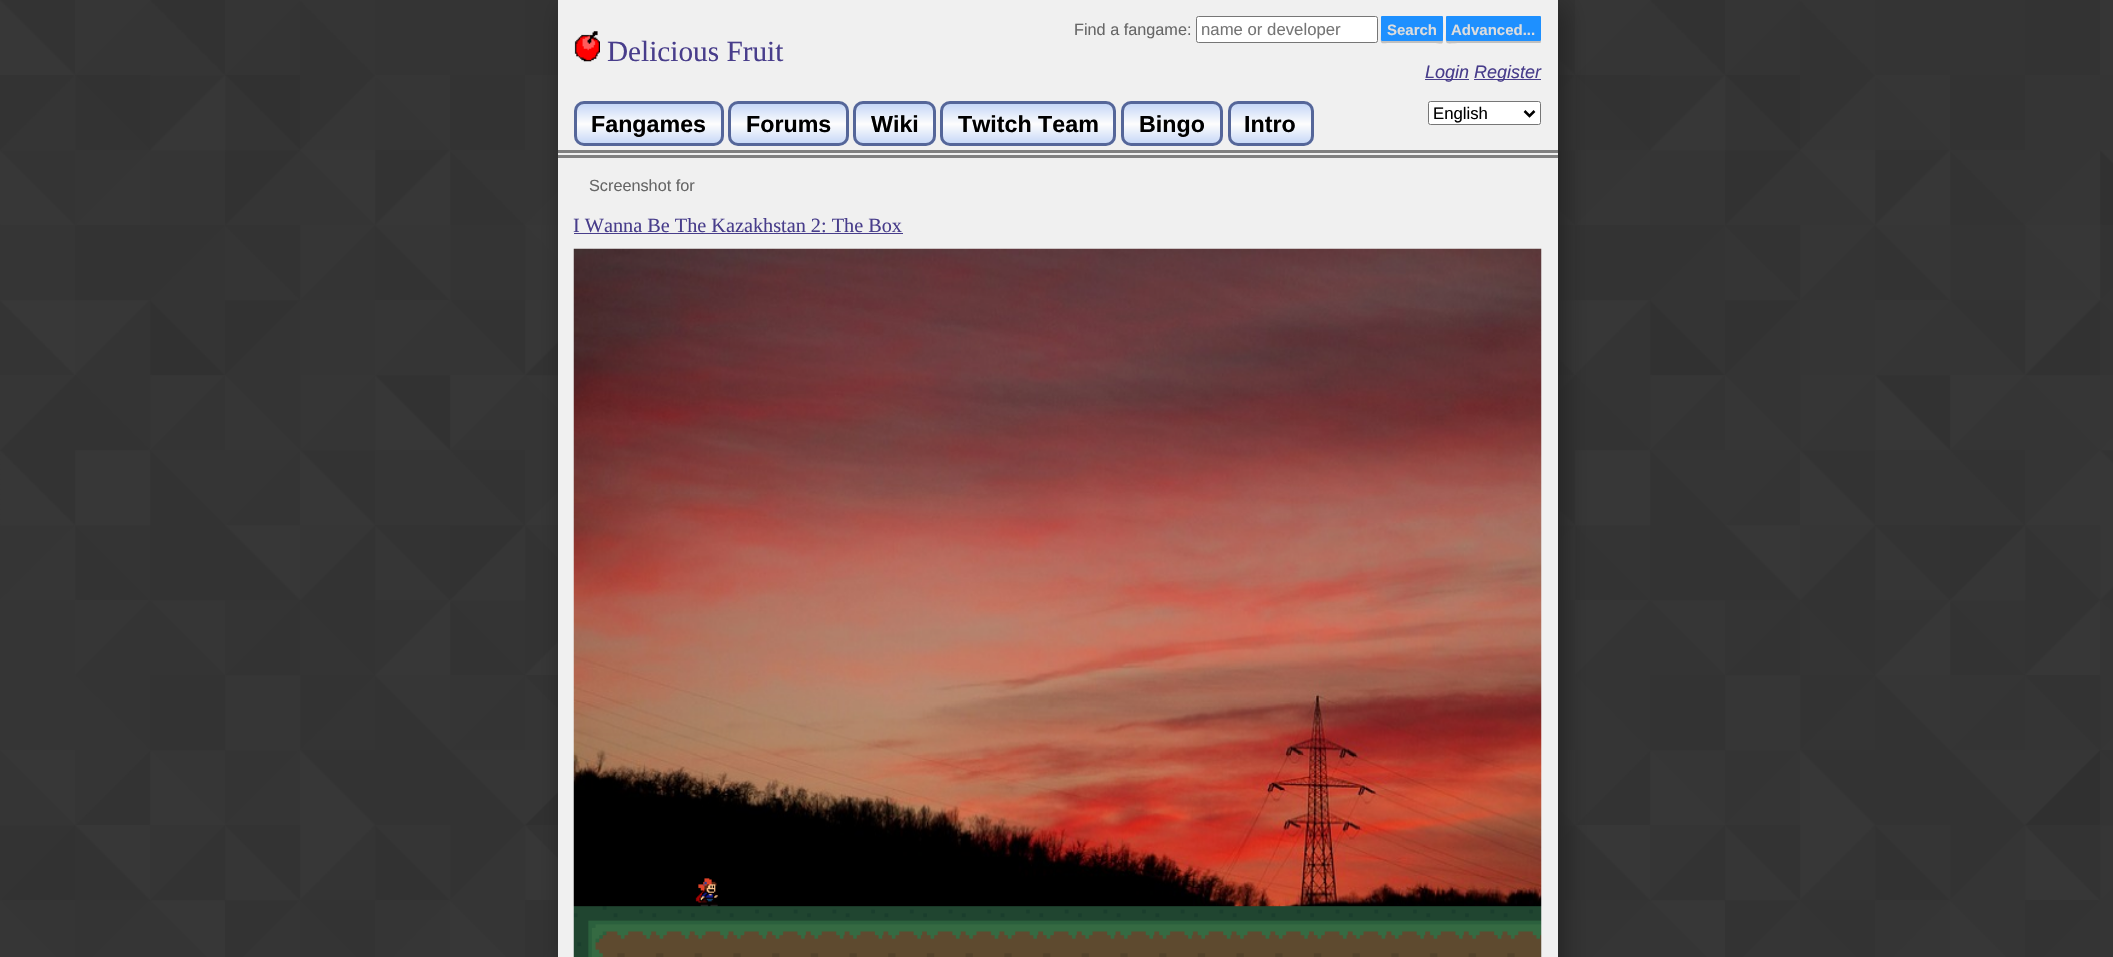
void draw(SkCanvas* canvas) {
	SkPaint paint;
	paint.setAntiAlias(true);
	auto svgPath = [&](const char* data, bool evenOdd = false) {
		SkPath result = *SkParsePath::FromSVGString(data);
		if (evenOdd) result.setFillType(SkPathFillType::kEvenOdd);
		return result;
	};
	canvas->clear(0xffffffff);
	canvas->drawImageRect(SkImages::DeferredFromEncodedData(SkData::MakeFromFileName("img1.png")), SkRect::MakeXYWH(0, 0, 2113, 957), SkSamplingOptions());
	paint.setColor(0xff222222);
	paint.setMaskFilter(SkMaskFilter::MakeBlur(kNormal_SkBlurStyle, 12.5));
	canvas->drawRect(SkRect::MakeXYWH(564, 6, 1000, 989), paint);
	paint.setMaskFilter(nullptr);
	paint.setColor(0xfff0f0f0);
	canvas->drawRect(SkRect::MakeXYWH(558, 0, 1000, 957), paint);
	paint.setColor(0xff808080);
	canvas->drawRect(SkRect::MakeXYWH(558, 150, 1000, 3), paint);
	canvas->drawRect(SkRect::MakeXYWH(558, 155, 1000, 3), paint);
	canvas->drawImageRect(SkImages::DeferredFromEncodedData(SkData::MakeFromFileName("img2.png")), SkRect::MakeXYWH(574, 31, 26, 31), SkSamplingOptions());
	SkFont f1(fontMgr->matchFamilyStyle("Liberation Serif", SkFontStyle::Normal()), 29.25);
	f1.setSubpixel(true);
	paint.setColor(0xff483d8b);
	canvas->drawString("Delicious Fruit", 607, 61, f1, paint);
	SkFont f2(fontMgr->matchFamilyStyle("Liberation Sans", SkFontStyle::Normal()), 16.25);
	f2.setSubpixel(true);
	paint.setColor(0xff666666);
	canvas->drawString("Find a fangame:", 1074, 35, f2, paint);
	paint.setColor(0xffffffff);
	canvas->drawRoundRect(SkRect::MakeXYWH(1196.5, 16.5, 181, 26), 2, 2, paint);
	paint.setStroke(true);
	paint.setStrokeWidth(1);
	paint.setColor(0xff767676);
	canvas->drawRoundRect(SkRect::MakeXYWH(1196.5, 16.5, 181, 26), 2, 2, paint);
	SkFont f3(fontMgr->matchFamilyStyle("Liberation Sans", SkFontStyle::Normal()), 16.75);
	f3.setSubpixel(true);
	paint.setStroke(false);
	paint.setColor(0xff757575);
	canvas->drawString("name or developer", 1201, 35, f3, paint);
	paint.setColor(0xffc0c0c0);
	canvas->drawPath(svgPath("M1381 18V30C1381 46 1378 43 1392 43H1432C1443 43 1443 46 1443 38C1443 36 1444 19 1442 18V40C1442 41 1442 41 1441 41H1382C1382 41 1381 41 1381 40Z"), paint);
	paint.setColor(0xff1e90ff);
	canvas->drawRoundRect(SkRect::MakeXYWH(1381, 16, 62, 25), 1, 1, paint);
	SkFont f4(fontMgr->matchFamilyStyle("Liberation Sans", SkFontStyle::Bold()), 15);
	f4.setSubpixel(true);
	paint.setColor(0xffdddddd);
	canvas->drawString("Search", 1387, 35, f4, paint);
	paint.setColor(0xffc0c0c0);
	canvas->drawPath(svgPath("M1446 18V30C1446 47 1443 43 1462 43H1540C1541 43 1541 41 1541 41H1540H1448C1447 41 1446 41 1446 40Z"), paint);
	paint.setColor(0xff1e90ff);
	canvas->drawRoundRect(SkRect::MakeXYWH(1446, 16, 95, 25), 1, 1, paint);
	paint.setColor(0xffdddddd);
	canvas->drawString("Advanced...", 1451, 35, f4, paint);
	paint.setColor(0xff483d8b);
	canvas->drawRect(SkRect::MakeXYWH(1425, 79, 44, 1), paint);
	SkFont f5(fontMgr->matchFamilyStyle("Liberation Sans", SkFontStyle::Italic()), 18);
	f5.setSubpixel(true);
	canvas->drawString("Login", 1425, 78, f5, paint);
	canvas->drawRect(SkRect::MakeXYWH(1474, 79, 67, 1), paint);
	canvas->drawString("Register", 1474, 78, f5, paint);
	canvas->save();
	canvas->clipPath(svgPath("M584 101H714C719.5 101 724 105.5 724 111V136C724 141.5 719.5 146 714 146H584C578.5 146 574 141.5 574 136V111C574 105.5 578.5 101 584 101Z"), true);
	{
		const SkColor colors[] = {0xffc6d7f7, 0xfffdfdfd, 0xffc6d7f7};
		const float stops[] = {0, 0.5, 1};
		const SkPoint ends[] = {{649, 104}, {649, 144}};
		paint.setShader(SkGradientShader::MakeLinear(ends, colors, stops, 3, SkTileMode::kClamp));
		paint.setAlpha(255);
	}
	canvas->drawRect(SkRect::MakeXYWH(574, 104, 150, 40), paint);
	canvas->restore();
	paint.setStroke(true);
	paint.setStrokeWidth(3);
	paint.setShader(nullptr);
	paint.setColor(0xff556699);
	canvas->drawRoundRect(SkRect::MakeXYWH(575.5, 102.5, 147, 42), 8.5, 8.5, paint);
	SkFont f6(fontMgr->matchFamilyStyle("Liberation Sans", SkFontStyle::Bold()), 23.25);
	f6.setSubpixel(true);
	paint.setStroke(false);
	paint.setColor(0xff000000);
	canvas->drawString("Fangames", 591, 132, f6, paint);
	canvas->save();
	canvas->clipPath(svgPath("M738 101H839C844.5 101 849 105.5 849 111V136C849 141.5 844.5 146 839 146H738C732.5 146 728 141.5 728 136V111C728 105.5 732.5 101 738 101Z"), true);
	{
		const SkColor colors[] = {0xffc6d7f7, 0xfffdfdfd, 0xffc6d7f7};
		const float stops[] = {0, 0.5, 1};
		const SkPoint ends[] = {{788, 104}, {788, 144}};
		paint.setShader(SkGradientShader::MakeLinear(ends, colors, stops, 3, SkTileMode::kClamp));
		paint.setAlpha(255);
	}
	canvas->drawRect(SkRect::MakeXYWH(728, 104, 121, 40), paint);
	canvas->restore();
	paint.setStroke(true);
	paint.setShader(nullptr);
	paint.setColor(0xff556699);
	canvas->drawRoundRect(SkRect::MakeXYWH(729.5, 102.5, 118, 42), 8.5, 8.5, paint);
	paint.setStroke(false);
	paint.setColor(0xff000000);
	canvas->drawString("Forums", 746, 132, f6, paint);
	canvas->save();
	canvas->clipPath(svgPath("M863 101H926C931.5 101 936 105.5 936 111V136C936 141.5 931.5 146 926 146H863C857.5 146 853 141.5 853 136V111C853 105.5 857.5 101 863 101Z"), true);
	{
		const SkColor colors[] = {0xffc6d7f7, 0xfffdfdfd, 0xffc6d7f7};
		const float stops[] = {0, 0.5, 1};
		const SkPoint ends[] = {{894, 104}, {894, 144}};
		paint.setShader(SkGradientShader::MakeLinear(ends, colors, stops, 3, SkTileMode::kClamp));
		paint.setAlpha(255);
	}
	canvas->drawRect(SkRect::MakeXYWH(853, 104, 83, 40), paint);
	canvas->restore();
	paint.setStroke(true);
	paint.setShader(nullptr);
	paint.setColor(0xff556699);
	canvas->drawRoundRect(SkRect::MakeXYWH(854.5, 102.5, 80, 42), 8.5, 8.5, paint);
	paint.setStroke(false);
	paint.setColor(0xff000000);
	canvas->drawString("Wiki", 871, 132, f6, paint);
	canvas->save();
	canvas->clipPath(svgPath("M950 101H1106C1111.5 101 1116 105.5 1116 111V136C1116 141.5 1111.5 146 1106 146H950C944.5 146 940 141.5 940 136V111C940 105.5 944.5 101 950 101Z"), true);
	{
		const SkColor colors[] = {0xffc6d7f7, 0xfffdfdfd, 0xffc6d7f7};
		const float stops[] = {0, 0.5, 1};
		const SkPoint ends[] = {{1028, 104}, {1028, 144}};
		paint.setShader(SkGradientShader::MakeLinear(ends, colors, stops, 3, SkTileMode::kClamp));
		paint.setAlpha(255);
	}
	canvas->drawRect(SkRect::MakeXYWH(940, 104, 176, 40), paint);
	canvas->restore();
	paint.setStroke(true);
	paint.setShader(nullptr);
	paint.setColor(0xff556699);
	canvas->drawRoundRect(SkRect::MakeXYWH(941.5, 102.5, 173, 42), 8.5, 8.5, paint);
	paint.setStroke(false);
	paint.setColor(0xff000000);
	canvas->drawString("Twitch Team", 958, 132, f6, paint);
	canvas->save();
	canvas->clipPath(svgPath("M1131 101H1213C1218.5 101 1223 105.5 1223 111V136C1223 141.5 1218.5 146 1213 146H1131C1125.5 146 1121 141.5 1121 136V111C1121 105.5 1125.5 101 1131 101Z"), true);
	{
		const SkColor colors[] = {0xffc6d7f7, 0xfffdfdfd, 0xffc6d7f7};
		const float stops[] = {0, 0.5, 1};
		const SkPoint ends[] = {{1172, 104}, {1172, 144}};
		paint.setShader(SkGradientShader::MakeLinear(ends, colors, stops, 3, SkTileMode::kClamp));
		paint.setAlpha(255);
	}
	canvas->drawRect(SkRect::MakeXYWH(1121, 104, 102, 40), paint);
	canvas->restore();
	paint.setStroke(true);
	paint.setShader(nullptr);
	paint.setColor(0xff556699);
	canvas->drawRoundRect(SkRect::MakeXYWH(1122.5, 102.5, 99, 42), 8.5, 8.5, paint);
	paint.setStroke(false);
	paint.setColor(0xff000000);
	canvas->drawString("Bingo", 1139, 132, f6, paint);
	canvas->save();
	canvas->clipPath(svgPath("M1238 101H1304C1309.5 101 1314 105.5 1314 111V136C1314 141.5 1309.5 146 1304 146H1238C1232.5 146 1228 141.5 1228 136V111C1228 105.5 1232.5 101 1238 101Z"), true);
	{
		const SkColor colors[] = {0xffc6d7f7, 0xfffdfdfd, 0xffc6d7f7};
		const float stops[] = {0, 0.5, 1};
		const SkPoint ends[] = {{1271, 104}, {1271, 144}};
		paint.setShader(SkGradientShader::MakeLinear(ends, colors, stops, 3, SkTileMode::kClamp));
		paint.setAlpha(255);
	}
	canvas->drawRect(SkRect::MakeXYWH(1228, 104, 86, 40), paint);
	canvas->restore();
	paint.setStroke(true);
	paint.setShader(nullptr);
	paint.setColor(0xff556699);
	canvas->drawRoundRect(SkRect::MakeXYWH(1229.5, 102.5, 83, 42), 8.5, 8.5, paint);
	paint.setStroke(false);
	paint.setColor(0xff000000);
	canvas->drawString("Intro", 1244, 132, f6, paint);
	paint.setColor(0xffffffff);
	canvas->drawRoundRect(SkRect::MakeXYWH(1428.5, 101.5, 112, 23), 2, 2, paint);
	paint.setStroke(true);
	paint.setStrokeWidth(1);
	paint.setColor(0xff767676);
	canvas->drawRoundRect(SkRect::MakeXYWH(1428.5, 101.5, 112, 23), 2, 2, paint);
	paint.setStrokeWidth(2.5);
	paint.setColor(0xff000000);
	canvas->drawPath(svgPath("M1524.5 111L1529.5 116L1534.5 111"), paint);
	paint.setStroke(false);
	canvas->drawString("English", 1433, 119, f3, paint);
	paint.setColor(0xff666666);
	canvas->drawString("Screenshot for", 589, 191, f2, paint);
	SkFont f7(fontMgr->matchFamilyStyle("Liberation Serif", SkFontStyle::Normal()), 20.25);
	f7.setSubpixel(true);
	paint.setColor(0xff483d8b);
	canvas->drawString("I Wanna Be The Kazakhstan 2: The Box", 573, 232, f7, paint);
	canvas->drawRect(SkRect::MakeXYWH(574, 233, 329, 1), paint);
	canvas->drawImageRect(SkImages::DeferredFromEncodedData(SkData::MakeFromFileName("img3.png")), SkRect::MakeXYWH(573, 248, 969, 709), SkSamplingOptions());
}
